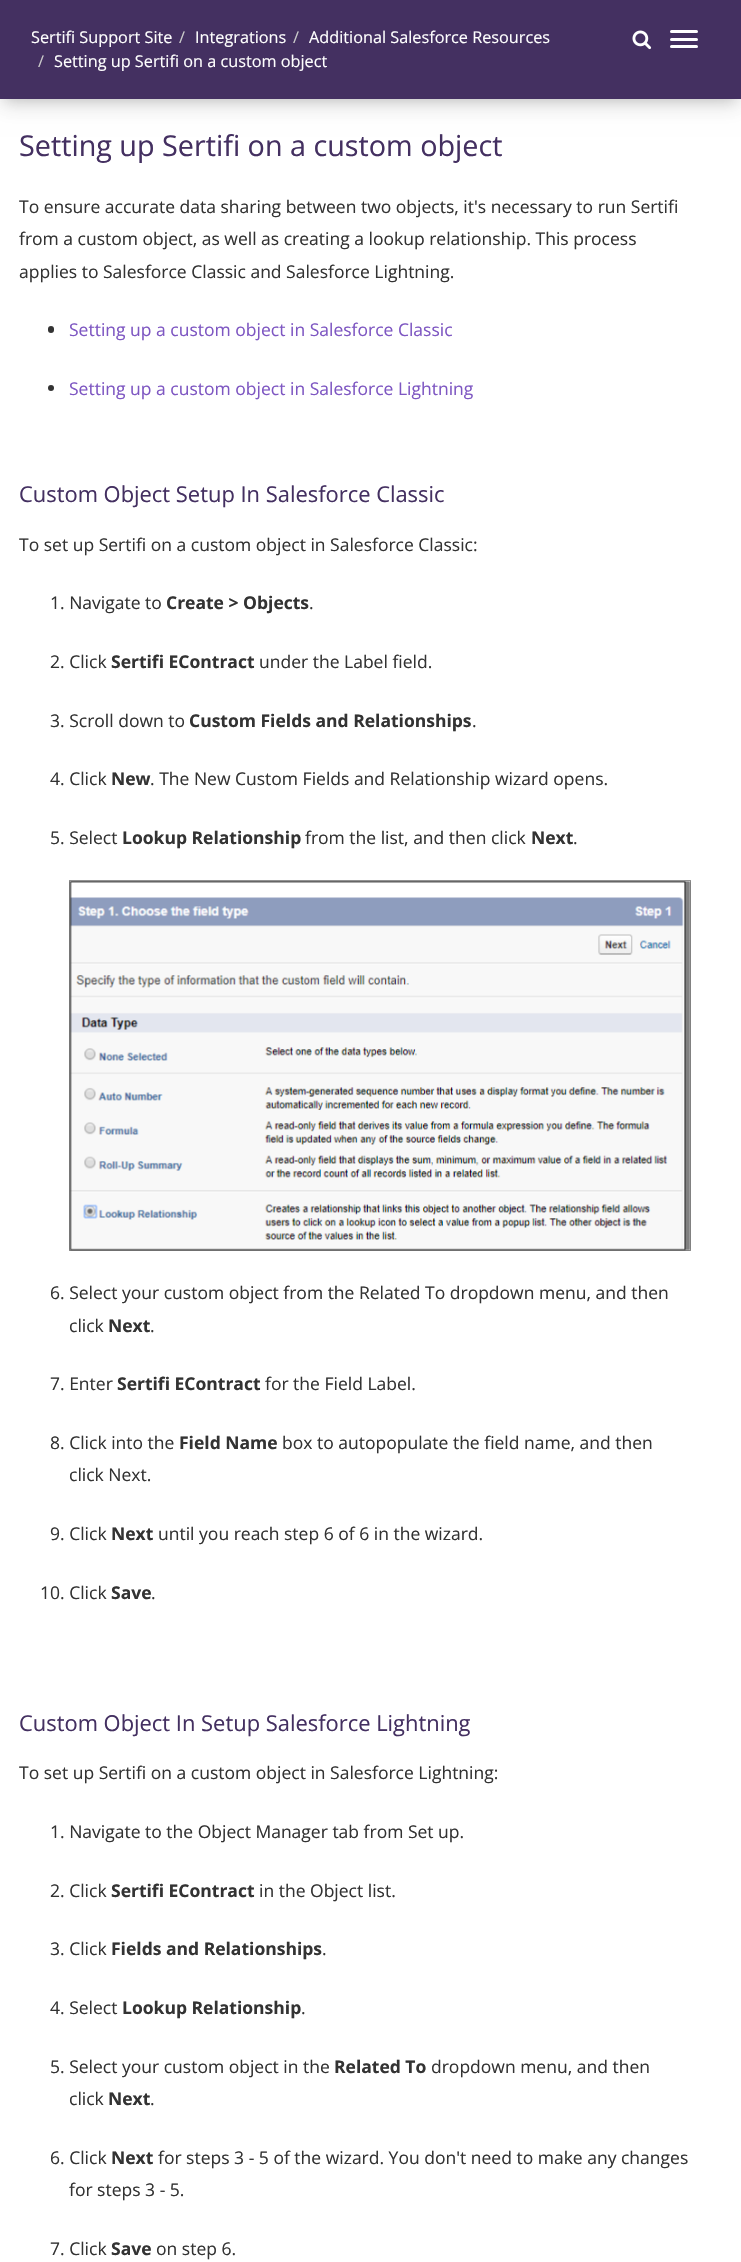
void draw(SkCanvas* canvas) {
	SkPaint paint;
	paint.setAntiAlias(true);
	canvas->clear(0xffffffff);
	paint.setColor(0x26000000);
	paint.setMaskFilter(SkMaskFilter::MakeBlur(kNormal_SkBlurStyle, 6));
	canvas->drawRect(SkRect::MakeXYWH(6, 15, 729, 86), paint);
	paint.setMaskFilter(nullptr);
	paint.setColor(0x1f000000);
	paint.setMaskFilter(SkMaskFilter::MakeBlur(kNormal_SkBlurStyle, 11));
	canvas->drawRect(SkRect::MakeXYWH(0, 5, 741, 99), paint);
	paint.setMaskFilter(nullptr);
	paint.setColor(0xff443061);
	canvas->drawRect(SkRect::MakeXYWH(0, 0, 741, 99), paint);
	SkFont f1(fontMgr->matchFamilyStyle("Open Sans", SkFontStyle::Normal()), 16.25);
	f1.setSubpixel(true);
	paint.setColor(0xffffffff);
	canvas->drawString("Sertifi Support Site", 31, 43, f1, paint);
	paint.setColor(0xffcccccc);
	canvas->drawString("/", 179, 43, f1, paint);
	paint.setColor(0xffffffff);
	canvas->drawString("Integrations", 195, 43, f1, paint);
	paint.setColor(0xffcccccc);
	canvas->drawString("/", 293, 43, f1, paint);
	paint.setColor(0xffffffff);
	canvas->drawString("Additional Salesforce Resources", 309, 43, f1, paint);
	paint.setColor(0xffcccccc);
	canvas->drawString("/", 38, 67, f1, paint);
	paint.setColor(0xffffffff);
	canvas->drawString("Setting up Sertifi on a custom object", 54, 67, f1, paint);
	canvas->drawImageRect(SkImages::DeferredFromEncodedData(SkData::MakeFromFileName("img1.png")), SkRect::MakeXYWH(632, 30, 20, 20), SkSamplingOptions());
	canvas->drawRoundRect(SkRect::MakeXYWH(670, 30, 28, 3), 1.5, 1.5, paint);
	canvas->drawRoundRect(SkRect::MakeXYWH(670, 38, 28, 3), 1.5, 1.5, paint);
	canvas->drawRoundRect(SkRect::MakeXYWH(670, 45, 28, 3), 1.5, 1.5, paint);
	SkFont f2(fontMgr->matchFamilyStyle("Open Sans", SkFontStyle::Normal()), 28.75);
	f2.setSubpixel(true);
	paint.setColor(0xff443061);
	canvas->drawString("Setting up Sertifi on a custom object", 19, 156, f2, paint);
	SkFont f3(fontMgr->matchFamilyStyle("Open Sans", SkFontStyle::Normal()), 17.5);
	f3.setSubpixel(true);
	paint.setColor(0xff333333);
	canvas->drawString("To ensure accurate data sharing between two objects, it's necessary to run Sertifi", 19, 213, f3, paint);
	canvas->drawString("from a custom object, as well as creating a lookup relationship. This process", 19, 245, f3, paint);
	canvas->drawString("applies to Salesforce Classic and Salesforce Lightning.", 19, 278, f3, paint);
	canvas->drawRoundRect(SkRect::MakeXYWH(48, 326, 6, 7), 3, 3, paint);
	paint.setColor(0xff7e57c2);
	canvas->drawString("Setting up a custom object in Salesforce Classic", 69, 336, f3, paint);
	paint.setColor(0xff333333);
	canvas->drawCircle(51, 388, 3, paint);
	paint.setColor(0xff7e57c2);
	canvas->drawString("Setting up a custom object in Salesforce Lightning", 69, 395, f3, paint);
	SkFont f4(fontMgr->matchFamilyStyle("Open Sans", SkFontStyle::Normal()), 21.9);
	f4.setSubpixel(true);
	paint.setColor(0xff443061);
	canvas->drawString("Custom Object Setup In Salesforce Classic", 19, 502, f4, paint);
	paint.setColor(0xff333333);
	canvas->drawString("To set up Sertifi on a custom object in Salesforce Classic:", 19, 551, f3, paint);
	canvas->drawString("1. Navigate to", 50, 609, f3, paint);
	SkFont f5(fontMgr->matchFamilyStyle("Open Sans", SkFontStyle::Bold()), 17.5);
	f5.setSubpixel(true);
	canvas->drawString("Create > Objects", 166, 609, f5, paint);
	canvas->drawString(".", 309, 609, f3, paint);
	canvas->drawString("2. Click", 50, 668, f3, paint);
	canvas->drawString("Sertifi EContract", 111, 668, f5, paint);
	canvas->drawString("under the Label field.", 259, 668, f3, paint);
	canvas->drawString("3. Scroll down to", 50, 727, f3, paint);
	canvas->drawString("Custom Fields and Relationships", 189, 727, f5, paint);
	canvas->drawString(".", 472, 727, f3, paint);
	canvas->drawString("4. Click", 50, 785, f3, paint);
	canvas->drawString("New", 111, 785, f5, paint);
	canvas->drawString(". The New Custom Fields and Relationship wizard opens.", 150, 785, f3, paint);
	canvas->drawString("5. Select", 50, 844, f3, paint);
	canvas->drawString("Lookup Relationship", 122, 844, f5, paint);
	canvas->drawString("from the list, and then click", 305, 844, f3, paint);
	canvas->drawString("Next", 531, 844, f5, paint);
	canvas->drawString(".", 573, 844, f3, paint);
	paint.setStroke(true);
	paint.setStrokeWidth(1);
	paint.setColor(0xff929292);
	canvas->drawRect(SkRect::MakeXYWH(69.5, 880.5, 621, 370), paint);
	canvas->drawImageRect(SkImages::DeferredFromEncodedData(SkData::MakeFromFileName("img2.png")), SkRect::MakeXYWH(69, 881, 622, 370), SkSamplingOptions());
	paint.setStroke(false);
	paint.setColor(0xff333333);
	canvas->drawString("6. Select your custom object from the Related To dropdown menu, and then", 50, 1299, f3, paint);
	canvas->drawString("click", 69, 1332, f3, paint);
	canvas->drawString("Next", 108, 1332, f5, paint);
	canvas->drawString(".", 150, 1332, f3, paint);
	canvas->drawString("7. Enter", 50, 1390, f3, paint);
	canvas->drawString("Sertifi EContract", 117, 1390, f5, paint);
	canvas->drawString("for the Field Label.", 265, 1390, f3, paint);
	canvas->drawString("8. Click into the", 50, 1449, f3, paint);
	canvas->drawString("Field Name", 179, 1449, f5, paint);
	canvas->drawString("box to autopopulate the field name, and then", 282, 1449, f3, paint);
	canvas->drawString("click Next.", 69, 1481, f3, paint);
	canvas->drawString("9. Click", 50, 1540, f3, paint);
	canvas->drawString("Next", 111, 1540, f5, paint);
	canvas->drawString("until you reach step 6 of 6 in the wizard.", 158, 1540, f3, paint);
	canvas->drawString("10. Click", 40, 1599, f3, paint);
	canvas->drawString("Save", 111, 1599, f5, paint);
	canvas->drawString(".", 151, 1599, f3, paint);
	paint.setColor(0xff443061);
	canvas->drawString("Custom Object In Setup Salesforce Lightning", 19, 1731, f4, paint);
	paint.setColor(0xff333333);
	canvas->drawString("To set up Sertifi on a custom object in Salesforce Lightning:", 19, 1779, f3, paint);
	canvas->drawString("1. Navigate to the Object Manager tab from Set up.", 50, 1838, f3, paint);
	canvas->drawString("2. Click", 50, 1897, f3, paint);
	canvas->drawString("Sertifi EContract", 111, 1897, f5, paint);
	canvas->drawString("in the Object list.", 259, 1897, f3, paint);
	canvas->drawString("3. Click", 50, 1955, f3, paint);
	canvas->drawString("Fields and Relationships", 111, 1955, f5, paint);
	canvas->drawString(".", 322, 1955, f3, paint);
	canvas->drawString("4. Select", 50, 2014, f3, paint);
	canvas->drawString("Lookup Relationship", 122, 2014, f5, paint);
	canvas->drawString(".", 301, 2014, f3, paint);
	canvas->drawString("5. Select your custom object in the", 50, 2073, f3, paint);
	canvas->drawString("Related To", 334, 2073, f5, paint);
	canvas->drawString("dropdown menu, and then", 431, 2073, f3, paint);
	canvas->drawString("click", 69, 2105, f3, paint);
	canvas->drawString("Next", 108, 2105, f5, paint);
	canvas->drawString(".", 150, 2105, f3, paint);
	canvas->drawString("6. Click", 50, 2164, f3, paint);
	canvas->drawString("Next", 111, 2164, f5, paint);
	canvas->drawString("for steps 3 - 5 of the wizard. You don't need to make any changes", 158, 2164, f3, paint);
	canvas->drawString("for steps 3 - 5.", 69, 2196, f3, paint);
	canvas->drawString("7. Click", 50, 2255, f3, paint);
	canvas->drawString("Save", 111, 2255, f5, paint);
	canvas->drawString("on step 6.", 156, 2255, f3, paint);
}
